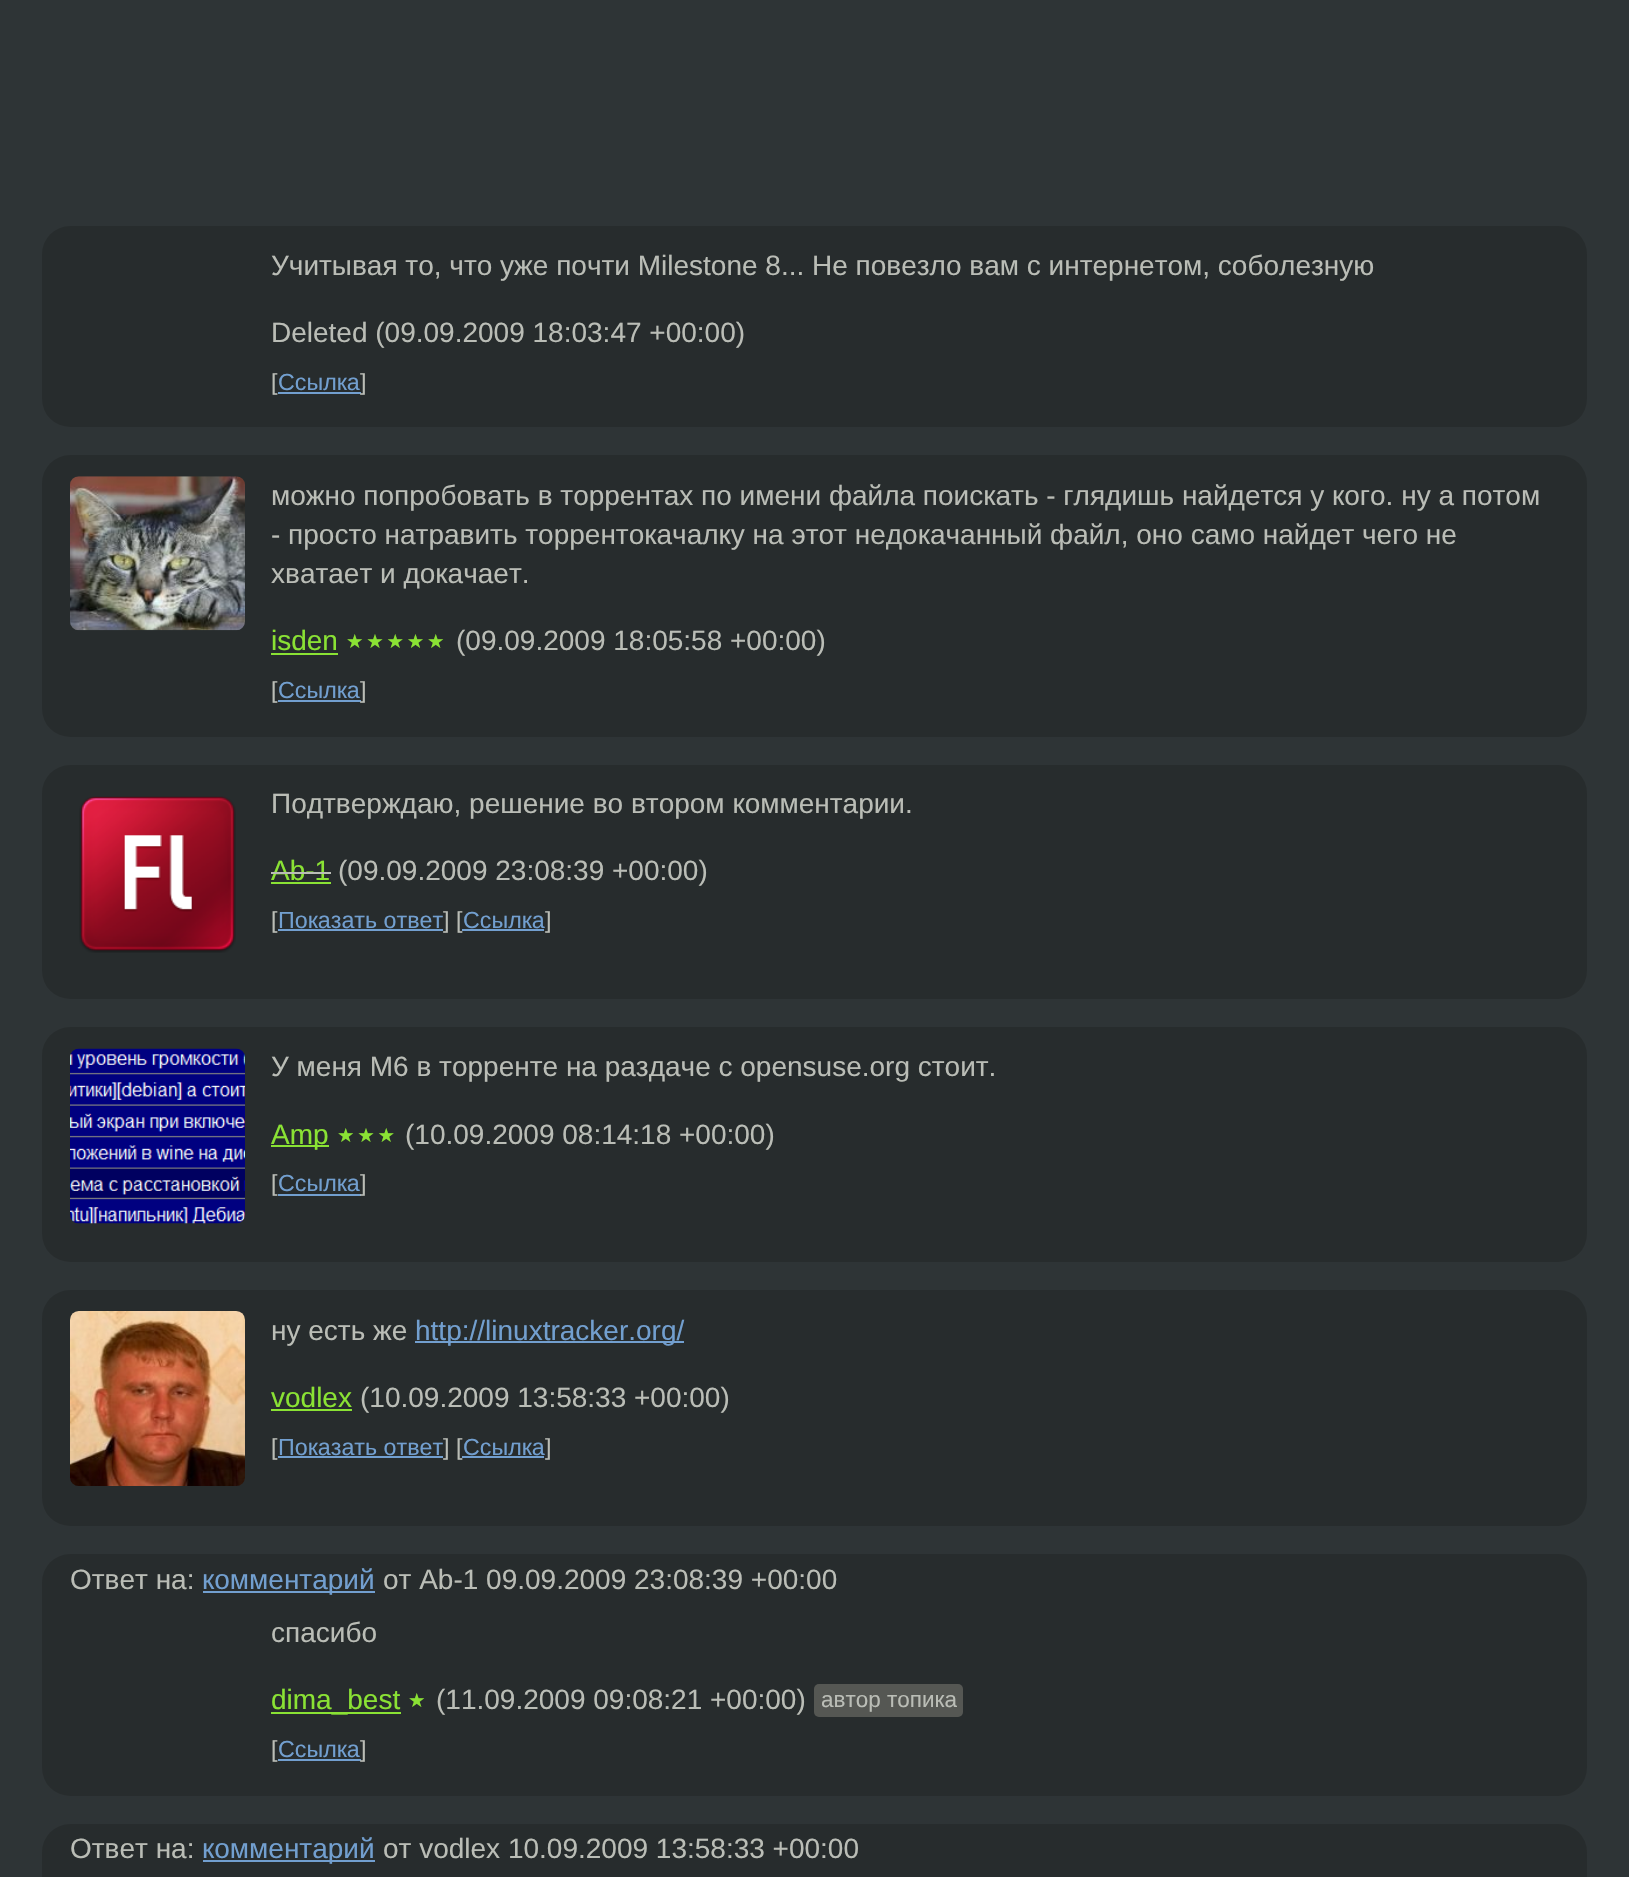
void draw(SkCanvas* canvas) {
	SkPaint paint;
	paint.setAntiAlias(true);
	auto spacedText = [&](const char* s, float x, float y, const SkFont& font, const SkPaint& ink, float letter, float word) {
		std::vector<SkGlyphID> glyphs(font.countText(s, strlen(s), SkTextEncoding::kUTF8));
		std::vector<float> xs(glyphs.size());
		font.textToGlyphs(s, strlen(s), SkTextEncoding::kUTF8, glyphs);
		font.getXPos(glyphs, xs, x);
		float extra = 0;
		for (size_t i = 0; i < glyphs.size(); i++) {
			xs[i] += extra;
			extra += letter + word * (glyphs[i] == font.unicharToGlyph(' '));
		}
		canvas->drawTextBlob(SkTextBlob::MakeFromPosHGlyphs(glyphs, xs, y, font), 0, 0, ink);
	};
	canvas->clear(0xff2e3436);
	paint.setColor(0xff272c2d);
	canvas->drawRoundRect(SkRect::MakeXYWH(42, 226, 1545, 201), 28, 28, paint);
	SkFont f1(fontMgr->matchFamilyStyle("Liberation Sans", SkFontStyle::Normal()), 28);
	f1.setSubpixel(true);
	paint.setColor(0xffbabdb6);
	canvas->drawString("Учитывая то, что уже почти Milestone 8... Не повезло вам с интернетом, соболезную", 271, 275, f1, paint);
	canvas->drawString("Deleted (09.09.2009 18:03:47 +00:00)", 271, 342, f1, paint);
	SkFont f2(fontMgr->matchFamilyStyle("Liberation Sans", SkFontStyle::Normal()), 23.25);
	f2.setSubpixel(true);
	canvas->drawString("[", 271, 390, f2, paint);
	paint.setColor(0xff729fcf);
	canvas->drawRect(SkRect::MakeXYWH(278, 392, 83, 2), paint);
	canvas->drawString("Ссылка", 278, 390, f2, paint);
	paint.setColor(0xffbabdb6);
	canvas->drawString("]", 360, 390, f2, paint);
	paint.setColor(0xff272c2d);
	canvas->drawRoundRect(SkRect::MakeXYWH(42, 455, 1545, 282), 28, 28, paint);
	canvas->drawImageRect(SkImages::DeferredFromEncodedData(SkData::MakeFromFileName("img1.png")), SkRect::MakeXYWH(70, 476, 175, 155), SkSamplingOptions());
	paint.setColor(0xffbabdb6);
	canvas->drawString("можно попробовать в торрентах по имени файла поискать - глядишь найдется у кого. ну а потом", 271, 505, f1, paint);
	canvas->drawString("- просто натравить торрентокачалку на этот недокачанный файл, оно само найдет чего не", 271, 544, f1, paint);
	canvas->drawString("хватает и докачает.", 271, 583, f1, paint);
	paint.setColor(0xff8ae234);
	canvas->drawString("isden", 271, 650, f1, paint);
	canvas->drawRect(SkRect::MakeXYWH(271, 653, 67, 2), paint);
	SkFont f3(fontMgr->matchFamilyStyle("DejaVu Sans", SkFontStyle::Normal()), 19.5);
	f3.setSubpixel(true);
	spacedText("★★★★★", 346, 648, f3, paint, 2.75, 0);
	paint.setColor(0xffbabdb6);
	canvas->drawString("(09.09.2009 18:05:58 +00:00)", 456, 650, f1, paint);
	canvas->drawString("[", 271, 698, f2, paint);
	paint.setColor(0xff729fcf);
	canvas->drawRect(SkRect::MakeXYWH(278, 700, 83, 2), paint);
	canvas->drawString("Ссылка", 278, 698, f2, paint);
	paint.setColor(0xffbabdb6);
	canvas->drawString("]", 360, 698, f2, paint);
	paint.setColor(0xff272c2d);
	canvas->drawRoundRect(SkRect::MakeXYWH(42, 765, 1545, 234), 28, 28, paint);
	canvas->drawImageRect(SkImages::DeferredFromEncodedData(SkData::MakeFromFileName("img2.png")), SkRect::MakeXYWH(79, 796, 157, 157), SkSamplingOptions());
	paint.setColor(0xffbabdb6);
	canvas->drawString("Подтверждаю, решение во втором комментарии.", 271, 813, f1, paint);
	paint.setColor(0xff8ae234);
	canvas->drawString("Ab-1", 271, 880, f1, paint);
	canvas->drawRect(SkRect::MakeXYWH(271, 882, 60, 2), paint);
	paint.setColor(0xffbabdb6);
	canvas->drawRect(SkRect::MakeXYWH(271, 872, 60, 2), paint);
	canvas->drawString("(09.09.2009 23:08:39 +00:00)", 338, 880, f1, paint);
	canvas->drawString("[", 271, 928, f2, paint);
	paint.setColor(0xff729fcf);
	canvas->drawRect(SkRect::MakeXYWH(278, 929, 165, 2), paint);
	canvas->drawString("Показать ответ", 278, 928, f2, paint);
	paint.setColor(0xffbabdb6);
	canvas->drawString("] [", 443, 928, f2, paint);
	paint.setColor(0xff729fcf);
	canvas->drawRect(SkRect::MakeXYWH(462, 929, 82, 2), paint);
	canvas->drawString("Ссылка", 463, 928, f2, paint);
	paint.setColor(0xffbabdb6);
	canvas->drawString("]", 545, 928, f2, paint);
	paint.setColor(0xff272c2d);
	canvas->drawRoundRect(SkRect::MakeXYWH(42, 1027, 1545, 235), 28, 28, paint);
	canvas->drawImageRect(SkImages::DeferredFromEncodedData(SkData::MakeFromFileName("img3.png")), SkRect::MakeXYWH(70, 1048, 175, 176), SkSamplingOptions());
	paint.setColor(0xffbabdb6);
	canvas->drawString("У меня M6 в торренте на раздаче с opensuse.org стоит.", 271, 1076, f1, paint);
	paint.setColor(0xff8ae234);
	canvas->drawRect(SkRect::MakeXYWH(271, 1145, 58, 2), paint);
	canvas->drawString("Amp", 271, 1144, f1, paint);
	spacedText("★★★", 337, 1142, f3, paint, 2.75, 0);
	paint.setColor(0xffbabdb6);
	canvas->drawString("(10.09.2009 08:14:18 +00:00)", 405, 1144, f1, paint);
	canvas->drawString("[", 271, 1191, f2, paint);
	paint.setColor(0xff729fcf);
	canvas->drawRect(SkRect::MakeXYWH(278, 1194, 83, 2), paint);
	canvas->drawString("Ссылка", 278, 1191, f2, paint);
	paint.setColor(0xffbabdb6);
	canvas->drawString("]", 360, 1191, f2, paint);
	paint.setColor(0xff272c2d);
	canvas->drawRoundRect(SkRect::MakeXYWH(42, 1290, 1545, 236), 28, 28, paint);
	canvas->drawImageRect(SkImages::DeferredFromEncodedData(SkData::MakeFromFileName("img4.png")), SkRect::MakeXYWH(70, 1311, 175, 175), SkSamplingOptions());
	paint.setColor(0xffbabdb6);
	canvas->drawString("ну есть же", 271, 1340, f1, paint);
	paint.setColor(0xff729fcf);
	canvas->drawRect(SkRect::MakeXYWH(415, 1341, 269, 2), paint);
	canvas->drawString("http://linuxtracker.org/", 415, 1340, f1, paint);
	paint.setColor(0xff8ae234);
	canvas->drawString("vodlex", 271, 1407, f1, paint);
	canvas->drawRect(SkRect::MakeXYWH(271, 1409, 81, 2), paint);
	paint.setColor(0xffbabdb6);
	canvas->drawString("(10.09.2009 13:58:33 +00:00)", 360, 1407, f1, paint);
	canvas->drawString("[", 271, 1455, f2, paint);
	paint.setColor(0xff729fcf);
	canvas->drawRect(SkRect::MakeXYWH(278, 1456, 165, 2), paint);
	canvas->drawString("Показать ответ", 278, 1455, f2, paint);
	paint.setColor(0xffbabdb6);
	canvas->drawString("] [", 443, 1455, f2, paint);
	paint.setColor(0xff729fcf);
	canvas->drawRect(SkRect::MakeXYWH(462, 1456, 82, 2), paint);
	canvas->drawString("Ссылка", 463, 1455, f2, paint);
	paint.setColor(0xffbabdb6);
	canvas->drawString("]", 545, 1455, f2, paint);
	paint.setColor(0xff272c2d);
	canvas->drawRoundRect(SkRect::MakeXYWH(42, 1554, 1545, 242), 28, 28, paint);
	paint.setColor(0xffbabdb6);
	canvas->drawString("Ответ на:", 70, 1589, f1, paint);
	paint.setColor(0xff729fcf);
	canvas->drawRect(SkRect::MakeXYWH(203, 1591, 172, 2), paint);
	canvas->drawString("комментарий", 202, 1589, f1, paint);
	paint.setColor(0xffbabdb6);
	canvas->drawString("от Ab-1 09.09.2009 23:08:39 +00:00", 383, 1589, f1, paint);
	canvas->drawString("спасибо", 271, 1642, f1, paint);
	paint.setColor(0xff8ae234);
	canvas->drawRect(SkRect::MakeXYWH(271, 1712, 130, 2), paint);
	canvas->drawString("dima_best", 271, 1709, f1, paint);
	spacedText("★", 408, 1707, f3, paint, 2.75, 0);
	paint.setColor(0xffbabdb6);
	canvas->drawString("(11.09.2009 09:08:21 +00:00)", 436, 1709, f1, paint);
	paint.setColor(0xff555753);
	canvas->drawRoundRect(SkRect::MakeXYWH(814, 1684, 149, 33), 5, 5, paint);
	SkFont f4(fontMgr->matchFamilyStyle("Liberation Sans", SkFontStyle::Normal()), 22.5);
	f4.setSubpixel(true);
	paint.setColor(0xffbabdb6);
	canvas->drawString("автор топика", 821, 1707, f4, paint);
	canvas->drawString("[", 271, 1757, f2, paint);
	paint.setColor(0xff729fcf);
	canvas->drawRect(SkRect::MakeXYWH(278, 1759, 83, 2), paint);
	canvas->drawString("Ссылка", 278, 1757, f2, paint);
	paint.setColor(0xffbabdb6);
	canvas->drawString("]", 360, 1757, f2, paint);
	paint.setColor(0xff272c2d);
	canvas->drawRoundRect(SkRect::MakeXYWH(42, 1824, 1545, 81), 28, 28, paint);
	paint.setColor(0xffbabdb6);
	canvas->drawString("Ответ на:", 70, 1858, f1, paint);
	paint.setColor(0xff729fcf);
	canvas->drawRect(SkRect::MakeXYWH(203, 1860, 172, 2), paint);
	canvas->drawString("комментарий", 202, 1858, f1, paint);
	paint.setColor(0xffbabdb6);
	canvas->drawString("от vodlex 10.09.2009 13:58:33 +00:00", 383, 1858, f1, paint);
}
